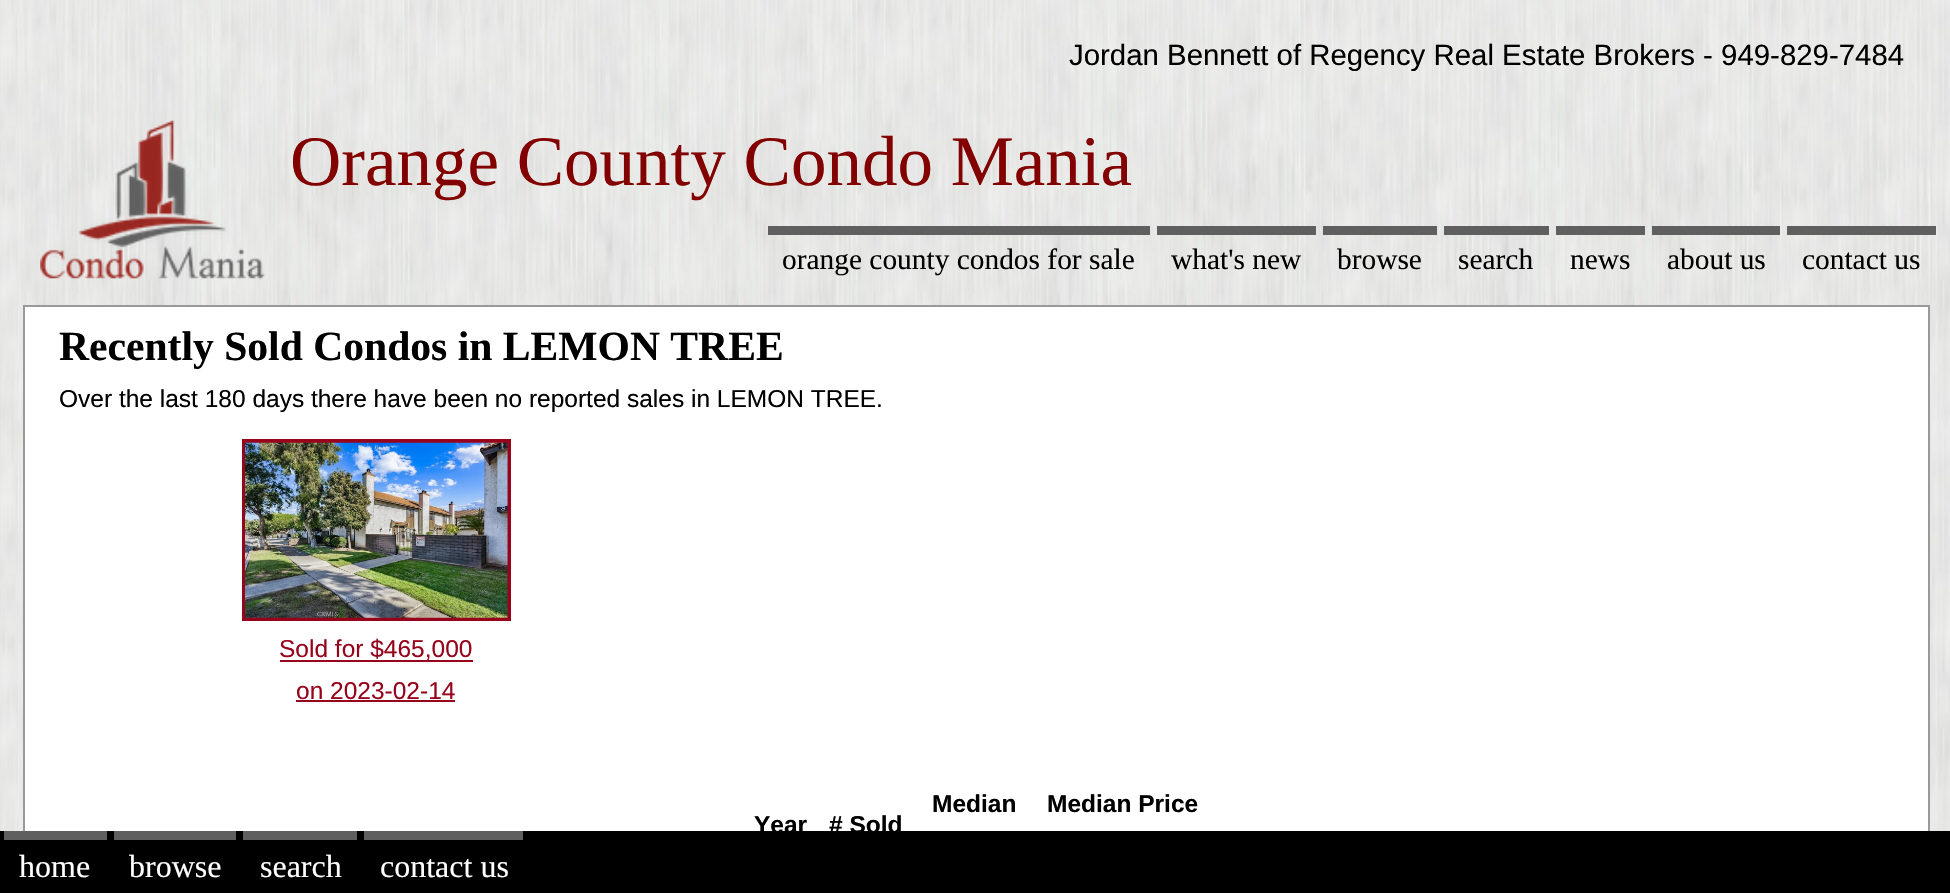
void draw(SkCanvas* canvas) {
	SkPaint paint;
	paint.setAntiAlias(true);
	canvas->clear(0xffffffff);
	canvas->drawImageRect(SkImages::DeferredFromEncodedData(SkData::MakeFromFileName("img1.png")), SkRect::MakeXYWH(0, 0, 1950, 831), SkSamplingOptions());
	SkFont f1(fontMgr->matchFamilyStyle("Liberation Sans", SkFontStyle::Normal()), 29.4);
	f1.setSubpixel(true);
	paint.setColor(0xff000000);
	canvas->drawString("Jordan Bennett of Regency Real Estate Brokers - 949-829-7484", 1069, 65, f1, paint);
	canvas->drawImageRect(SkImages::DeferredFromEncodedData(SkData::MakeFromFileName("img2.png")), SkRect::MakeXYWH(40, 120, 225, 159), SkSamplingOptions());
	SkFont f2(fontMgr->matchFamilyStyle("Liberation Serif", SkFontStyle::Normal()), 71);
	f2.setSubpixel(true);
	paint.setColor(0xff820000);
	canvas->drawString("Orange County Condo Mania", 290, 185, f2, paint);
	paint.setColor(0xff5f5f5f);
	canvas->drawRect(SkRect::MakeXYWH(768, 226, 382, 9), paint);
	SkFont f3(fontMgr->matchFamilyStyle("Liberation Serif", SkFontStyle::Normal()), 29.4);
	f3.setSubpixel(true);
	paint.setColor(0xff000000);
	canvas->drawString("orange county condos for sale", 782, 269, f3, paint);
	paint.setColor(0xff5f5f5f);
	canvas->drawRect(SkRect::MakeXYWH(1157, 226, 159, 9), paint);
	paint.setColor(0xff000000);
	canvas->drawString("what's new", 1171, 269, f3, paint);
	paint.setColor(0xff5f5f5f);
	canvas->drawRect(SkRect::MakeXYWH(1323, 226, 114, 9), paint);
	paint.setColor(0xff000000);
	canvas->drawString("browse", 1337, 269, f3, paint);
	paint.setColor(0xff5f5f5f);
	canvas->drawRect(SkRect::MakeXYWH(1444, 226, 105, 9), paint);
	paint.setColor(0xff000000);
	canvas->drawString("search", 1458, 269, f3, paint);
	paint.setColor(0xff5f5f5f);
	canvas->drawRect(SkRect::MakeXYWH(1556, 226, 89, 9), paint);
	paint.setColor(0xff000000);
	canvas->drawString("news", 1570, 269, f3, paint);
	paint.setColor(0xff5f5f5f);
	canvas->drawRect(SkRect::MakeXYWH(1652, 226, 128, 9), paint);
	paint.setColor(0xff000000);
	canvas->drawString("about us", 1667, 269, f3, paint);
	paint.setColor(0xff5f5f5f);
	canvas->drawRect(SkRect::MakeXYWH(1787, 226, 149, 9), paint);
	paint.setColor(0xff000000);
	canvas->drawString("contact us", 1802, 269, f3, paint);
	paint.setColor(0xffffffff);
	canvas->drawRect(SkRect::MakeXYWH(25, 307, 1903, 524), paint);
	paint.setStroke(true);
	paint.setStrokeWidth(2);
	paint.setColor(0xff999999);
	canvas->drawRect(SkRect::MakeXYWH(24, 306, 1905, 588), paint);
	SkFont f4(fontMgr->matchFamilyStyle("Liberation Serif", SkFontStyle::Bold()), 41.6);
	f4.setSubpixel(true);
	paint.setStroke(false);
	paint.setColor(0xff000000);
	canvas->drawString("Recently Sold Condos in LEMON TREE", 59, 360, f4, paint);
	SkFont f5(fontMgr->matchFamilyStyle("Liberation Sans", SkFontStyle::Normal()), 24.5);
	f5.setSubpixel(true);
	canvas->drawString("Over the last 180 days there have been no reported sales in LEMON TREE.", 59, 407, f5, paint);
	paint.setStroke(true);
	paint.setStrokeWidth(4);
	paint.setColor(0xff96031a);
	canvas->drawRect(SkRect::MakeXYWH(244, 441, 265, 178), paint);
	canvas->drawImageRect(SkImages::DeferredFromEncodedData(SkData::MakeFromFileName("img3.png")), SkRect::MakeXYWH(245, 442, 263, 176), SkSamplingOptions());
	paint.setStroke(false);
	canvas->drawRect(SkRect::MakeXYWH(280, 660, 193, 2), paint);
	canvas->drawString("Sold for $465,000", 279, 657, f5, paint);
	canvas->drawString("on 2023-02-14", 296, 699, f5, paint);
	canvas->drawRect(SkRect::MakeXYWH(296, 700, 159, 2), paint);
	SkFont f6(fontMgr->matchFamilyStyle("Liberation Sans", SkFontStyle::Bold()), 24.5);
	f6.setSubpixel(true);
	paint.setColor(0xff000000);
	canvas->drawString("Median", 932, 812, f6, paint);
	canvas->drawString("Median Price", 1047, 812, f6, paint);
	canvas->drawString("Year", 754, 833, f6, paint);
	canvas->drawString("# Sold", 829, 833, f6, paint);
	canvas->drawRect(SkRect::MakeXYWH(0, 831, 1950, 62), paint);
	paint.setColor(0xff5f5f5f);
	canvas->drawRect(SkRect::MakeXYWH(4, 831, 103, 9), paint);
	SkFont f7(fontMgr->matchFamilyStyle("Liberation Serif", SkFontStyle::Normal()), 32);
	f7.setSubpixel(true);
	paint.setColor(0xffffffff);
	canvas->drawString("home", 19, 877, f7, paint);
	paint.setColor(0xff5f5f5f);
	canvas->drawRect(SkRect::MakeXYWH(114, 831, 122, 9), paint);
	paint.setColor(0xffffffff);
	canvas->drawString("browse", 129, 877, f7, paint);
	paint.setColor(0xff5f5f5f);
	canvas->drawRect(SkRect::MakeXYWH(243, 831, 114, 9), paint);
	paint.setColor(0xffffffff);
	canvas->drawString("search", 260, 877, f7, paint);
	paint.setColor(0xff5f5f5f);
	canvas->drawRect(SkRect::MakeXYWH(364, 831, 159, 9), paint);
	paint.setColor(0xffffffff);
	canvas->drawString("contact us", 380, 877, f7, paint);
}
